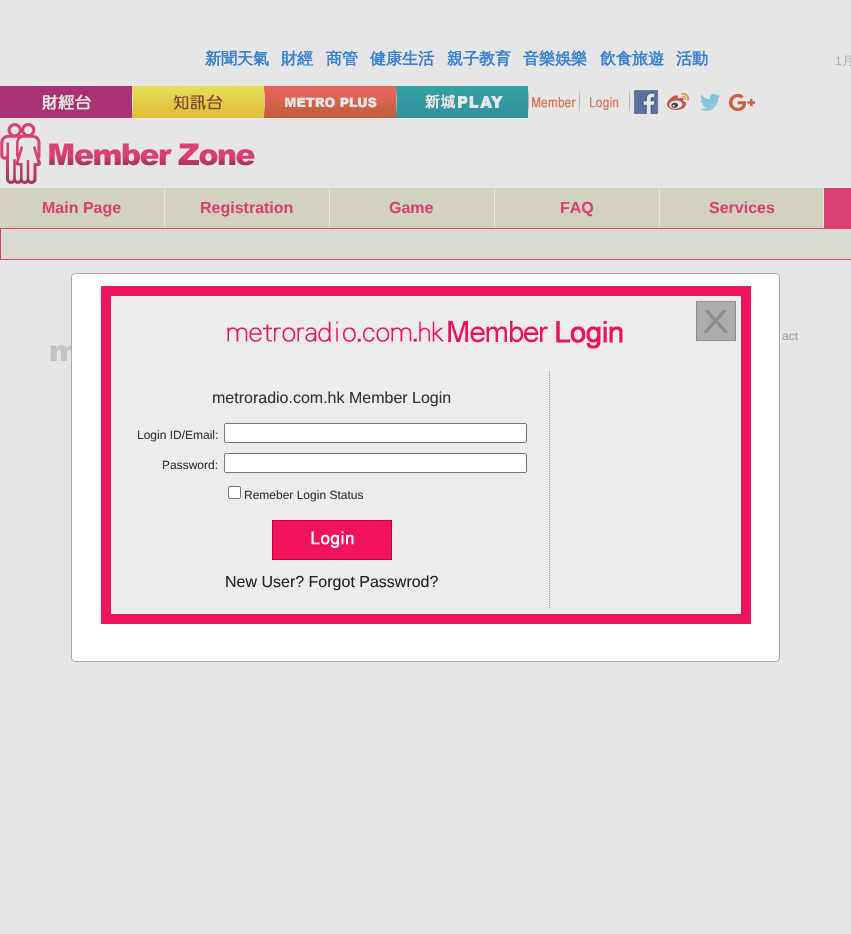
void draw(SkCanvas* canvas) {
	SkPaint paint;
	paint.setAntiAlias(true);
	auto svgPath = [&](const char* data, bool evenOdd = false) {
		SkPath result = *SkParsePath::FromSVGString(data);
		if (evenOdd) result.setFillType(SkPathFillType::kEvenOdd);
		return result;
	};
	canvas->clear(0xffe6e6e6);
	SkFont f1(fontMgr->matchFamilyStyle("WenQuanYi Zen Hei", SkFontStyle::Bold()), 16);
	f1.setSubpixel(true);
	paint.setColor(0xff3881d3);
	canvas->drawString("新聞天氣", 205, 64, f1, paint);
	canvas->drawString("財經", 281, 64, f1, paint);
	canvas->drawString("商管", 326, 64, f1, paint);
	canvas->drawString("健康生活", 370, 64, f1, paint);
	canvas->drawString("親子教育", 447, 64, f1, paint);
	canvas->drawString("音樂娛樂", 523, 64, f1, paint);
	canvas->drawString("飲食旅遊", 600, 64, f1, paint);
	canvas->drawString("活動", 676, 64, f1, paint);
	SkFont f2(fontMgr->matchFamilyStyle("Liberation Sans", SkFontStyle::Normal()), 12);
	f2.setSubpixel(true);
	paint.setColor(0xffb5b5b5);
	canvas->drawString("1", 835, 65, f2, paint);
	SkFont f3(fontMgr->matchFamilyStyle("WenQuanYi Zen Hei", SkFontStyle(500, SkFontStyle::kNormal_Width, SkFontStyle::kUpright_Slant)), 12);
	f3.setSubpixel(true);
	canvas->drawString("月", 842, 65, f3, paint);
	canvas->drawImageRect(SkImages::DeferredFromEncodedData(SkData::MakeFromFileName("img1.png")), SkRect::MakeXYWH(0, 86, 132, 32), SkSamplingOptions());
	canvas->drawImageRect(SkImages::DeferredFromEncodedData(SkData::MakeFromFileName("img2.png")), SkRect::MakeXYWH(132, 86, 132, 32), SkSamplingOptions());
	canvas->drawImageRect(SkImages::DeferredFromEncodedData(SkData::MakeFromFileName("img3.png")), SkRect::MakeXYWH(264, 86, 132, 32), SkSamplingOptions());
	canvas->drawImageRect(SkImages::DeferredFromEncodedData(SkData::MakeFromFileName("img4.png")), SkRect::MakeXYWH(396, 86, 132, 32), SkSamplingOptions());
	canvas->drawImageRect(SkImages::DeferredFromEncodedData(SkData::MakeFromFileName("img5.png")), SkRect::MakeXYWH(528, 89, 48, 26), SkSamplingOptions());
	canvas->drawImageRect(SkImages::DeferredFromEncodedData(SkData::MakeFromFileName("img6.png")), SkRect::MakeXYWH(579, 89, 51, 26), SkSamplingOptions());
	canvas->drawImageRect(SkImages::DeferredFromEncodedData(SkData::MakeFromFileName("img7.png")), SkRect::MakeXYWH(634, 90, 24, 24), SkSamplingOptions());
	canvas->drawImageRect(SkImages::DeferredFromEncodedData(SkData::MakeFromFileName("img8.png")), SkRect::MakeXYWH(667, 93, 22, 17), SkSamplingOptions());
	canvas->drawImageRect(SkImages::DeferredFromEncodedData(SkData::MakeFromFileName("img9.png")), SkRect::MakeXYWH(700, 94, 20, 17), SkSamplingOptions());
	canvas->drawImageRect(SkImages::DeferredFromEncodedData(SkData::MakeFromFileName("img10.png")), SkRect::MakeXYWH(729, 94, 26, 17), SkSamplingOptions());
	canvas->drawImageRect(SkImages::DeferredFromEncodedData(SkData::MakeFromFileName("img11.png")), SkRect::MakeXYWH(0, 123, 255, 61), SkSamplingOptions());
	paint.setColor(0xffd2d2bf);
	canvas->drawRect(SkRect::MakeXYWH(0, 188, 164, 40), paint);
	SkFont f4(fontMgr->matchFamilyStyle("Liberation Sans", SkFontStyle::Bold()), 16);
	f4.setSubpixel(true);
	paint.setColor(0xffda4173);
	canvas->drawString("Main Page", 42, 213, f4, paint);
	paint.setColor(0xffd2d2bf);
	canvas->drawRect(SkRect::MakeXYWH(165, 188, 164, 40), paint);
	paint.setColor(0xffda4173);
	canvas->drawString("Registration", 200, 213, f4, paint);
	paint.setColor(0xffd2d2bf);
	canvas->drawRect(SkRect::MakeXYWH(330, 188, 164, 40), paint);
	paint.setColor(0xffda4173);
	canvas->drawString("Game", 389, 213, f4, paint);
	paint.setColor(0xffd2d2bf);
	canvas->drawRect(SkRect::MakeXYWH(495, 188, 164, 40), paint);
	paint.setColor(0xffda4173);
	canvas->drawString("FAQ", 560, 213, f4, paint);
	paint.setColor(0xffd2d2bf);
	canvas->drawRect(SkRect::MakeXYWH(660, 188, 163, 40), paint);
	paint.setColor(0xffda4173);
	canvas->drawString("Services", 709, 213, f4, paint);
	canvas->drawRect(SkRect::MakeXYWH(824, 188, 27, 40), paint);
	paint.setColor(0xffdbdbd1);
	canvas->drawRect(SkRect::MakeXYWH(0.5, 228.5, 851, 31), paint);
	paint.setStroke(true);
	paint.setStrokeWidth(1);
	paint.setColor(0xffda4173);
	canvas->drawRect(SkRect::MakeXYWH(0.5, 228.5, 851, 31), paint);
	paint.setStroke(false);
	paint.setColor(0xff9e9e9e);
	canvas->drawString("act", 782, 340, f2, paint);
	canvas->drawImageRect(SkImages::DeferredFromEncodedData(SkData::MakeFromFileName("img12.png")), SkRect::MakeXYWH(50, 339, 21, 23), SkSamplingOptions());
	paint.setColor(0xffffffff);
	canvas->drawRoundRect(SkRect::MakeXYWH(71.5, 273.5, 708, 388), 3.5, 3.5, paint);
	paint.setStroke(true);
	paint.setColor(0xffaaaaaa);
	canvas->drawRoundRect(SkRect::MakeXYWH(71.5, 273.5, 708, 388), 3.5, 3.5, paint);
	paint.setStroke(false);
	paint.setColor(0xffececec);
	canvas->drawRect(SkRect::MakeXYWH(106, 291, 640, 328), paint);
	paint.setStroke(true);
	paint.setStrokeWidth(10);
	paint.setColor(0xffee145b);
	canvas->drawRect(SkRect::MakeXYWH(106, 291, 640, 328), paint);
	canvas->drawImageRect(SkImages::DeferredFromEncodedData(SkData::MakeFromFileName("img13.png")), SkRect::MakeXYWH(227, 321, 396, 28), SkSamplingOptions());
	canvas->drawImageRect(SkImages::DeferredFromEncodedData(SkData::MakeFromFileName("img14.png")), SkRect::MakeXYWH(696, 301, 40, 40), SkSamplingOptions());
	paint.setStrokeWidth(1);
	paint.setColor(0xff999999);
	paint.setPathEffect(SkDashPathEffect::Make({{1, 1}}, 0));
	canvas->drawPath(svgPath("M549.5 371V609"), paint);
	paint.setPathEffect(nullptr);
	SkFont f5(fontMgr->matchFamilyStyle("Liberation Sans", SkFontStyle::Normal()), 16);
	f5.setSubpixel(true);
	paint.setStroke(false);
	paint.setColor(0xff333333);
	canvas->drawString("metroradio.com.hk Member Login", 212, 403, f5, paint);
	canvas->drawString("Login ID/Email:", 137, 439, f2, paint);
	paint.setColor(0xffffffff);
	canvas->drawRoundRect(SkRect::MakeXYWH(224.5, 423.5, 302, 19), 1.5, 1.5, paint);
	paint.setStroke(true);
	paint.setColor(0xff767676);
	canvas->drawRoundRect(SkRect::MakeXYWH(224.5, 423.5, 302, 19), 1.5, 1.5, paint);
	paint.setStroke(false);
	paint.setColor(0xff333333);
	canvas->drawString("Password:", 162, 469, f2, paint);
	paint.setColor(0xffffffff);
	canvas->drawRoundRect(SkRect::MakeXYWH(224.5, 453.5, 302, 19), 1.5, 1.5, paint);
	paint.setStroke(true);
	paint.setColor(0xff767676);
	canvas->drawRoundRect(SkRect::MakeXYWH(224.5, 453.5, 302, 19), 1.5, 1.5, paint);
	paint.setStroke(false);
	paint.setColor(0xffffffff);
	canvas->drawRoundRect(SkRect::MakeXYWH(228.5, 486.5, 12, 12), 1.5, 1.5, paint);
	paint.setStroke(true);
	paint.setColor(0xff767676);
	canvas->drawRoundRect(SkRect::MakeXYWH(228.5, 486.5, 12, 12), 1.5, 1.5, paint);
	paint.setStroke(false);
	paint.setColor(0xff333333);
	canvas->drawString("Remeber Login Status", 244, 499, f2, paint);
	canvas->drawImageRect(SkImages::DeferredFromEncodedData(SkData::MakeFromFileName("img15.png")), SkRect::MakeXYWH(272, 520, 120, 40), SkSamplingOptions());
	paint.setColor(0xff222222);
	canvas->drawString("New User? Forgot Passwrod?", 225, 587, f5, paint);
}
